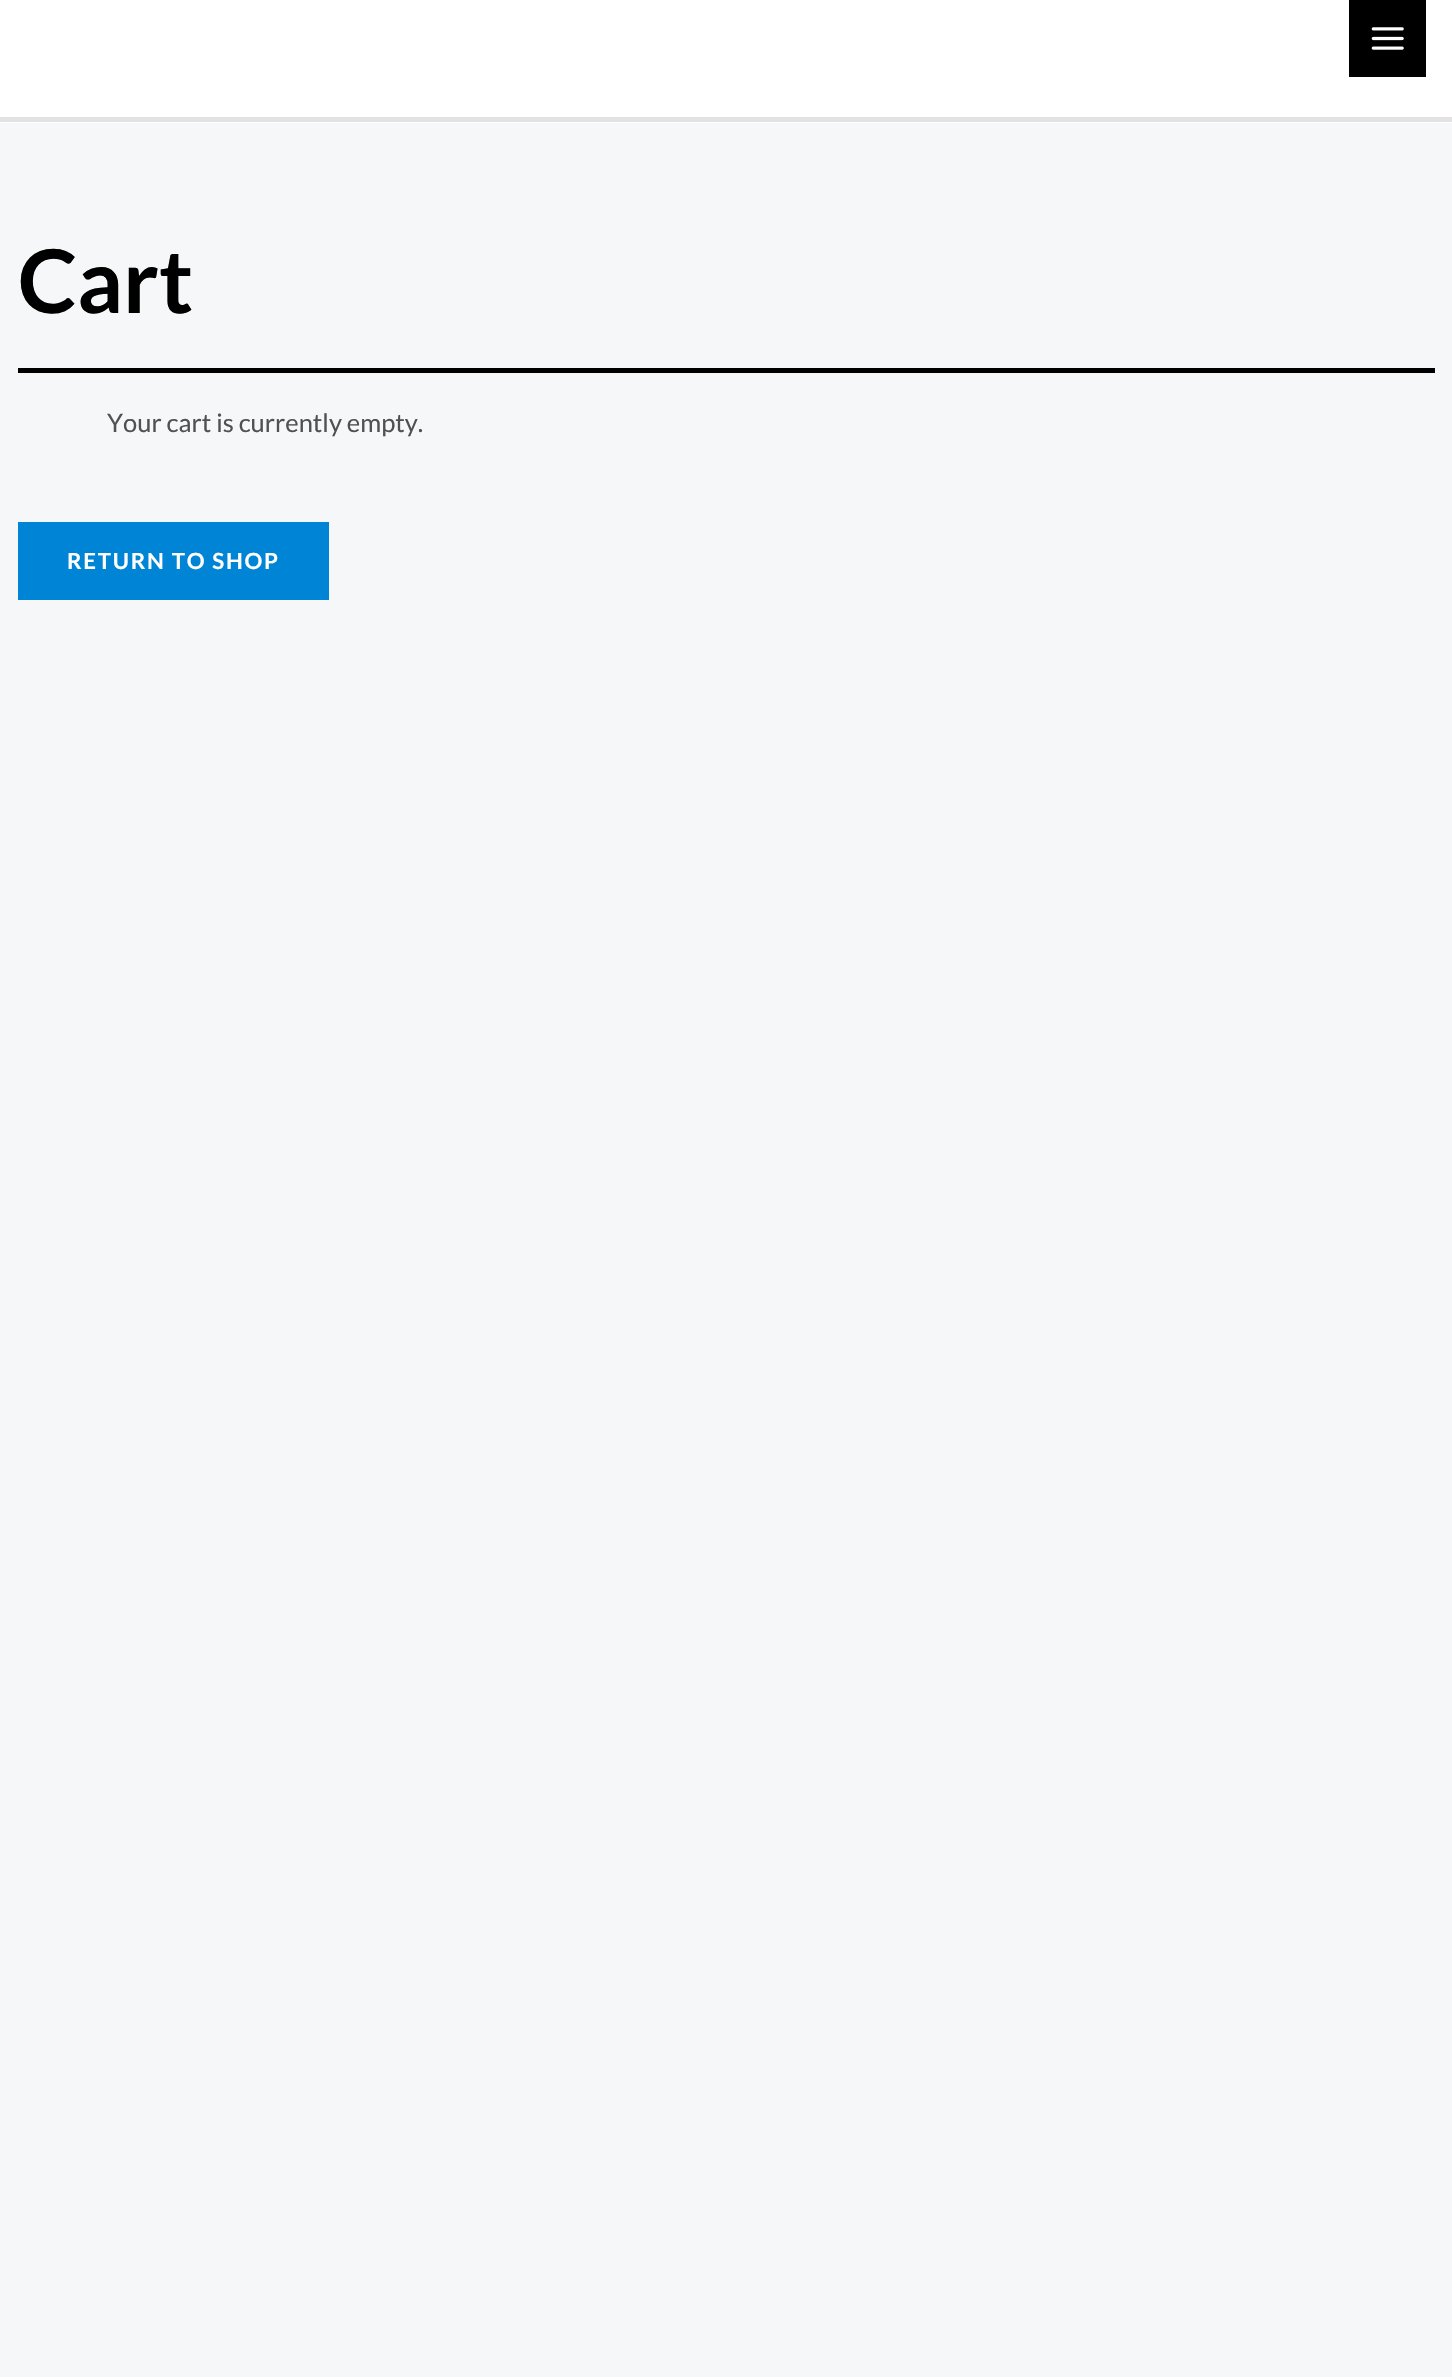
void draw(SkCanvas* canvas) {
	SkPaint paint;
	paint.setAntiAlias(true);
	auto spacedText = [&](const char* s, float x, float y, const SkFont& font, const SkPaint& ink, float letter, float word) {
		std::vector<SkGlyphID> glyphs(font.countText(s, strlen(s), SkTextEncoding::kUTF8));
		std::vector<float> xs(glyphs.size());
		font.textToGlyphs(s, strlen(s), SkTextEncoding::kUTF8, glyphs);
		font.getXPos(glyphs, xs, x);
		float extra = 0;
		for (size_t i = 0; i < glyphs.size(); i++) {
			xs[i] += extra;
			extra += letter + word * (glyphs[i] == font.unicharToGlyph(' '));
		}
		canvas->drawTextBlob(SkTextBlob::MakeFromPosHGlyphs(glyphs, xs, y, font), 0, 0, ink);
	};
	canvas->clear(0xfff5f7f9);
	paint.setColor(0xffffffff);
	canvas->drawRect(SkRect::MakeXYWH(0, 0, 1452, 123), paint);
	paint.setColor(0xffe2e2e2);
	canvas->drawRect(SkRect::MakeXYWH(0, 117, 1452, 5), paint);
	paint.setColor(0xff000000);
	canvas->drawRect(SkRect::MakeXYWH(1349, 0, 77, 77), paint);
	canvas->drawImageRect(SkImages::DeferredFromEncodedData(SkData::MakeFromFileName("img1.png")), SkRect::MakeXYWH(1371, 27, 33, 23), SkSamplingOptions());
	SkFont f1(fontMgr->matchFamilyStyle("Lato", SkFontStyle::Bold()), 88);
	f1.setSubpixel(true);
	canvas->drawString("Cart", 18, 313, f1, paint);
	canvas->drawRect(SkRect::MakeXYWH(18, 368, 1417, 5), paint);
	SkFont f2(fontMgr->matchFamilyStyle("Lato", SkFontStyle::Normal()), 25.5);
	f2.setSubpixel(true);
	paint.setColor(0xff515151);
	canvas->drawString("Your cart is currently empty.", 107, 432, f2, paint);
	paint.setColor(0xff0084d6);
	canvas->drawRect(SkRect::MakeXYWH(18, 522, 311, 78), paint);
	SkFont f3(fontMgr->matchFamilyStyle("Lato", SkFontStyle::Bold()), 22.25);
	f3.setSubpixel(true);
	paint.setColor(0xffffffff);
	spacedText("RETURN TO SHOP", 67, 569, f3, paint, 1.75, 0);
}
